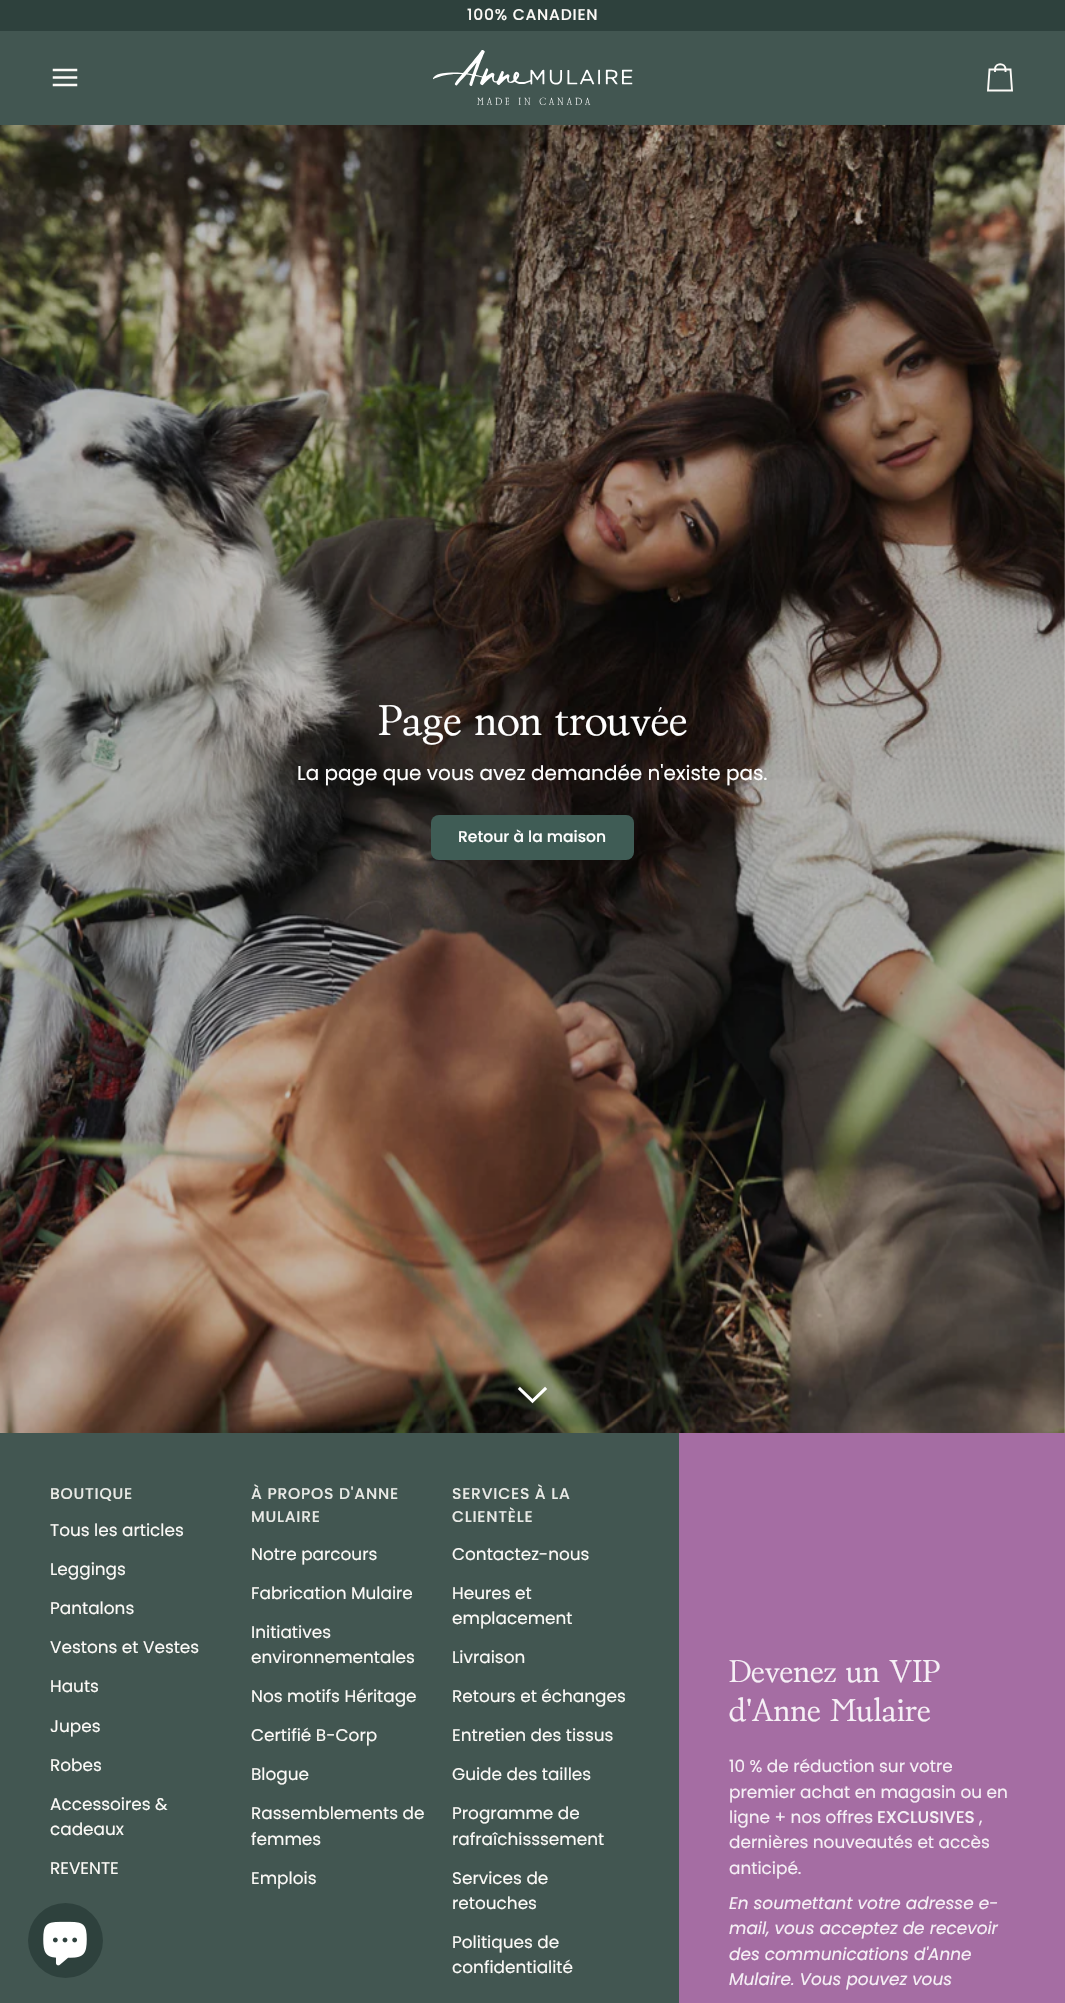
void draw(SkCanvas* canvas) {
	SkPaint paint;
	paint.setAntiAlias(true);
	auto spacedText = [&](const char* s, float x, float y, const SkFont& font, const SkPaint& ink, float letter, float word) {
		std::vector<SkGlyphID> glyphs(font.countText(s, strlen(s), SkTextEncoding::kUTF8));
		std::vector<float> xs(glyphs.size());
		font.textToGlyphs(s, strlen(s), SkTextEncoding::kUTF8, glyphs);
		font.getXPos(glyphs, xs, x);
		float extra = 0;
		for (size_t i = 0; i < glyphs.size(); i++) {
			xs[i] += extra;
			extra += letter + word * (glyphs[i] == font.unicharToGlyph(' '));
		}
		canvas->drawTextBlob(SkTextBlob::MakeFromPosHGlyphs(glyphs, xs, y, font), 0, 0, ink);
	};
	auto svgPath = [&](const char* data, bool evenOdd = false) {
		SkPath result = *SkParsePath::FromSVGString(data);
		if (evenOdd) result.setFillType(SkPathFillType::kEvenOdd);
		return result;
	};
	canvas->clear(0xffffffff);
	paint.setColor(0xff2e413d);
	canvas->drawRect(SkRect::MakeXYWH(0, 0, 1065, 31), paint);
	SkFont f1(fontMgr->matchFamilyStyle("Poppins", SkFontStyle(500, SkFontStyle::kNormal_Width, SkFontStyle::kUpright_Slant)), 15.6);
	f1.setSubpixel(true);
	paint.setColor(0xfffcfaf7);
	spacedText("100% CANADIEN", 467, 20, f1, paint, 0.75, 0);
	paint.setColor(0xff425651);
	canvas->drawRect(SkRect::MakeXYWH(0, 31, 1065, 94), paint);
	paint.setStroke(true);
	paint.setStrokeWidth(2.5);
	paint.setStrokeCap(SkPaint::kSquare_Cap);
	paint.setColor(0xfffcfaf7);
	canvas->drawPath(svgPath("M76 70H54M76 77.5H54M76 85H54"), paint);
	canvas->drawImageRect(SkImages::DeferredFromEncodedData(SkData::MakeFromFileName("img1.png")), SkRect::MakeXYWH(433, 50, 200, 55), SkSamplingOptions());
	paint.setStrokeWidth(1.9);
	paint.setStrokeCap(SkPaint::kButt_Cap);
	canvas->drawPath(svgPath("M1005.5 72V69.5H1010.5L1012 90.5H988L989.5 69.5H995C995 62.5 1005.5 62.5 1005.5 69.5H995V72"), paint);
	canvas->drawImageRect(SkImages::DeferredFromEncodedData(SkData::MakeFromFileName("img2.png")), SkRect::MakeXYWH(0, 125, 1065, 1308), SkSamplingOptions());
	SkFont f2(fontMgr->matchFamilyStyle("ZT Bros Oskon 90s", SkFontStyle::Normal()), 42.5);
	f2.setSubpixel(true);
	paint.setStroke(false);
	paint.setColor(0xffffffff);
	canvas->drawString("Page non trouvée", 378, 735, f2, paint);
	SkFont f3(fontMgr->matchFamilyStyle("Poppins", SkFontStyle::Normal()), 20);
	f3.setSubpixel(true);
	canvas->drawString("La page que vous avez demandée n'existe pas.", 297, 780, f3, paint);
	paint.setColor(0xff3f5c55);
	canvas->drawRoundRect(SkRect::MakeXYWH(431, 815, 203, 45), 8, 8, paint);
	paint.setColor(0xffffffff);
	canvas->drawString("Retour à la maison", 458, 842, f1, paint);
	paint.setStroke(true);
	paint.setStrokeWidth(3.1);
	paint.setStrokeCap(SkPaint::kSquare_Cap);
	canvas->drawPath(svgPath("M520 1389L532.5 1401L545 1389"), paint);
	paint.setStroke(false);
	paint.setColor(0xff425651);
	canvas->drawRect(SkRect::MakeXYWH(0, 1433, 679, 570), paint);
	paint.setColor(0xffe9eae6);
	spacedText("BOUTIQUE", 50, 1499, f1, paint, 0.75, 0);
	SkFont f4(fontMgr->matchFamilyStyle("Poppins", SkFontStyle::Normal()), 16.9);
	f4.setSubpixel(true);
	paint.setColor(0xfffcfaf7);
	canvas->drawString("Tous les articles", 50, 1536, f4, paint);
	canvas->drawString("Leggings", 50, 1575, f4, paint);
	canvas->drawString("Pantalons", 50, 1614, f4, paint);
	canvas->drawString("Vestons et Vestes", 50, 1653, f4, paint);
	canvas->drawString("Hauts", 50, 1692, f4, paint);
	canvas->drawString("Jupes", 50, 1732, f4, paint);
	canvas->drawString("Robes", 50, 1771, f4, paint);
	canvas->drawString("Accessoires &", 50, 1810, f4, paint);
	canvas->drawString("cadeaux", 50, 1835, f4, paint);
	canvas->drawString("REVENTE", 50, 1874, f4, paint);
	paint.setColor(0xffe9eae6);
	spacedText("À PROPOS D'ANNE", 251, 1499, f1, paint, 0.75, 0);
	spacedText("MULAIRE", 251, 1522, f1, paint, 0.75, 0);
	paint.setColor(0xfffcfaf7);
	canvas->drawString("Notre parcours", 251, 1560, f4, paint);
	canvas->drawString("Fabrication Mulaire", 251, 1599, f4, paint);
	canvas->drawString("Initiatives", 251, 1638, f4, paint);
	canvas->drawString("environnementales", 251, 1663, f4, paint);
	canvas->drawString("Nos motifs Héritage", 251, 1702, f4, paint);
	canvas->drawString("Certifié B-Corp", 251, 1741, f4, paint);
	canvas->drawString("Blogue", 251, 1780, f4, paint);
	canvas->drawString("Rassemblements de", 251, 1819, f4, paint);
	canvas->drawString("femmes", 251, 1845, f4, paint);
	canvas->drawString("Emplois", 251, 1884, f4, paint);
	paint.setColor(0xffe9eae6);
	spacedText("SERVICES À LA", 452, 1499, f1, paint, 0.75, 0);
	spacedText("CLIENTÈLE", 452, 1522, f1, paint, 0.75, 0);
	paint.setColor(0xfffcfaf7);
	canvas->drawString("Contactez-nous", 452, 1560, f4, paint);
	canvas->drawString("Heures et", 452, 1599, f4, paint);
	canvas->drawString("emplacement", 452, 1624, f4, paint);
	canvas->drawString("Livraison", 452, 1663, f4, paint);
	canvas->drawString("Retours et échanges", 452, 1702, f4, paint);
	canvas->drawString("Entretien des tissus", 452, 1741, f4, paint);
	canvas->drawString("Guide des tailles", 452, 1780, f4, paint);
	canvas->drawString("Programme de", 452, 1819, f4, paint);
	canvas->drawString("rafraîchisssement", 452, 1845, f4, paint);
	canvas->drawString("Services de", 452, 1884, f4, paint);
	canvas->drawString("retouches", 452, 1909, f4, paint);
	canvas->drawString("Politiques de", 452, 1948, f4, paint);
	canvas->drawString("confidentialité", 452, 1973, f4, paint);
	paint.setColor(0xffa56da3);
	canvas->drawRect(SkRect::MakeXYWH(679, 1433, 386, 570), paint);
	SkFont f5(fontMgr->matchFamilyStyle("ZT Bros Oskon 90s", SkFontStyle::Normal()), 31.25);
	f5.setSubpixel(true);
	paint.setColor(0xfff6f0f6);
	canvas->drawString("Devenez un VIP", 729, 1682, f5, paint);
	canvas->drawString("d'Anne Mulaire", 729, 1721, f5, paint);
	canvas->drawString("10 % de réduction sur votre", 729, 1772, f4, paint);
	canvas->drawString("premier achat en magasin ou en", 729, 1798, f4, paint);
	canvas->drawString("ligne + nos offres", 729, 1823, f4, paint);
	SkFont f6(fontMgr->matchFamilyStyle("Poppins", SkFontStyle(500, SkFontStyle::kNormal_Width, SkFontStyle::kUpright_Slant)), 16.9);
	f6.setSubpixel(true);
	canvas->drawString("EXCLUSIVES", 877, 1823, f6, paint);
	canvas->drawString(",", 979, 1823, f4, paint);
	canvas->drawString("dernières nouveautés et accès", 729, 1848, f4, paint);
	canvas->drawString("anticipé.", 729, 1874, f4, paint);
	SkFont f7(fontMgr->matchFamilyStyle("Poppins", SkFontStyle::Italic()), 16.9);
	f7.setSubpixel(true);
	canvas->drawString("En soumettant votre adresse e-", 729, 1909, f7, paint);
	canvas->drawString("mail, vous acceptez de recevoir", 729, 1934, f7, paint);
	canvas->drawString("des communications d'Anne", 729, 1960, f7, paint);
	canvas->drawString("Mulaire. Vous pouvez vous", 729, 1985, f7, paint);
	paint.setColor(0xff2e413d);
	canvas->drawCircle(65.5, 1940.5, 37.5, paint);
	canvas->drawImageRect(SkImages::DeferredFromEncodedData(SkData::MakeFromFileName("img3.png")), SkRect::MakeXYWH(43, 1921, 44, 45), SkSamplingOptions());
}
